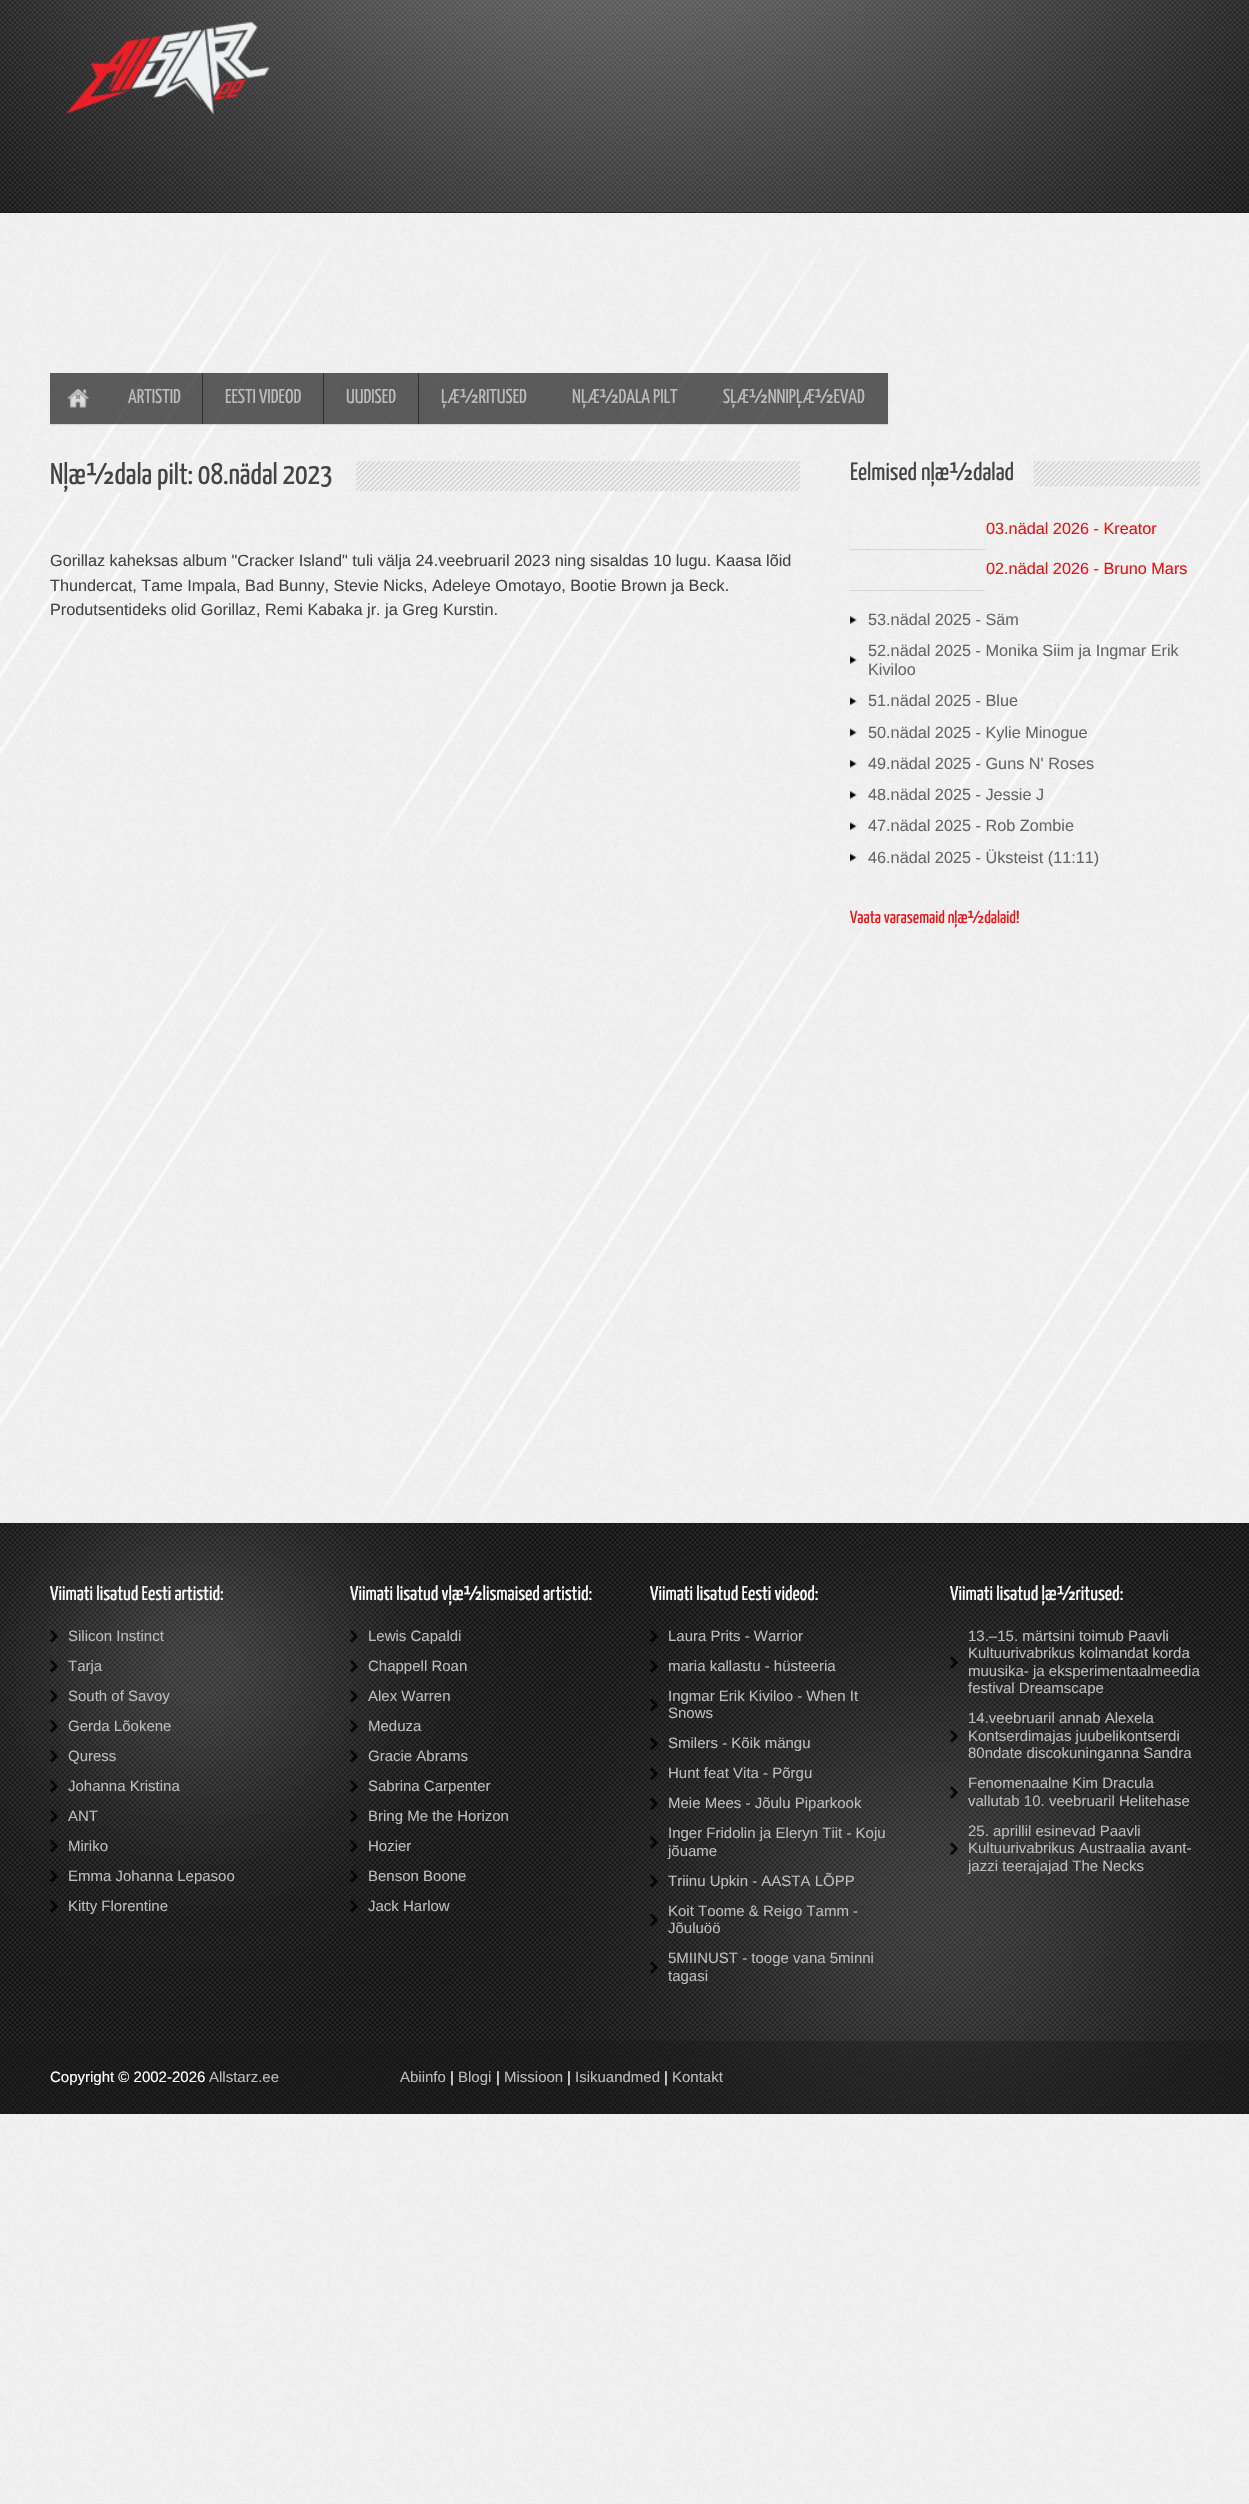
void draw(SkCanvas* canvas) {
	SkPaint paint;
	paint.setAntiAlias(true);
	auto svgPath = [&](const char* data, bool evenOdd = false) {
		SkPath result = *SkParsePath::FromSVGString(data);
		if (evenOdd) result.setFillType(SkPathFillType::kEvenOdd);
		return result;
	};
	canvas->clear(0xffffffff);
	canvas->drawImageRect(SkImages::DeferredFromEncodedData(SkData::MakeFromFileName("img1.png")), SkRect::MakeXYWH(0, 213, 1249, 2291), SkSamplingOptions());
	paint.setColor(0xff111111);
	canvas->drawRect(SkRect::MakeXYWH(0, 0, 1249, 213), paint);
	canvas->drawImageRect(SkImages::DeferredFromEncodedData(SkData::MakeFromFileName("img2.png")), SkRect::MakeXYWH(0, 0, 1249, 213), SkSamplingOptions());
	canvas->drawImageRect(SkImages::DeferredFromEncodedData(SkData::MakeFromFileName("img3.png")), SkRect::MakeXYWH(0, 0, 1249, 213), SkSamplingOptions());
	canvas->drawImageRect(SkImages::DeferredFromEncodedData(SkData::MakeFromFileName("img4.png")), SkRect::MakeXYWH(66, 21, 204, 94), SkSamplingOptions());
	canvas->drawImageRect(SkImages::DeferredFromEncodedData(SkData::MakeFromFileName("img6.png")), SkRect::MakeXYWH(0, 247, 1249, 1274), SkSamplingOptions());
	canvas->save();
	canvas->clipPath(svgPath("M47 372H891V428H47ZM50 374H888V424H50Z", true), true);
	paint.setColor(0x1a000000);
	paint.setMaskFilter(SkMaskFilter::MakeBlur(kNormal_SkBlurStyle, 0.5));
	canvas->drawRect(SkRect::MakeXYWH(50, 375, 838, 50), paint);
	paint.setMaskFilter(nullptr);
	canvas->restore();
	paint.setColor(0xb31b1b1b);
	canvas->drawRect(SkRect::MakeXYWH(50, 373, 55, 51), paint);
	canvas->drawImageRect(SkImages::DeferredFromEncodedData(SkData::MakeFromFileName("img5.png")), SkRect::MakeXYWH(67, 388, 22, 20), SkSamplingOptions());
	canvas->drawRect(SkRect::MakeXYWH(105, 373, 98, 51), paint);
	SkFont f1(fontMgr->matchFamilyStyle("Yanone Kaffeesatz", SkFontStyle::Normal()), 20);
	f1.setSubpixel(true);
	paint.setColor(0xffbbbbbb);
	canvas->drawString("ARTISTID", 128, 403, f1, paint);
	paint.setColor(0xb31b1b1b);
	canvas->drawRect(SkRect::MakeXYWH(202, 373, 122, 51), paint);
	paint.setColor(0xffbbbbbb);
	canvas->drawString("EESTI VIDEOD", 225, 403, f1, paint);
	paint.setColor(0xb31b1b1b);
	canvas->drawRect(SkRect::MakeXYWH(323, 373, 96, 51), paint);
	paint.setColor(0xffbbbbbb);
	canvas->drawString("UUDISED", 346, 403, f1, paint);
	paint.setColor(0xb31b1b1b);
	canvas->drawRect(SkRect::MakeXYWH(418, 373, 132, 51), paint);
	paint.setColor(0xffbbbbbb);
	canvas->drawString("ĻÆ½RITUSED", 441, 403, f1, paint);
	paint.setColor(0xb31b1b1b);
	canvas->drawRect(SkRect::MakeXYWH(550, 373, 150, 51), paint);
	paint.setColor(0xffbbbbbb);
	canvas->drawString("NĻÆ½DALA PILT", 572, 403, f1, paint);
	paint.setColor(0xb31b1b1b);
	canvas->drawRect(SkRect::MakeXYWH(700, 373, 188, 51), paint);
	paint.setColor(0xffbbbbbb);
	canvas->drawString("SĻÆ½NNIPĻÆ½EVAD", 723, 403, f1, paint);
	canvas->drawImageRect(SkImages::DeferredFromEncodedData(SkData::MakeFromFileName("img7.png")), SkRect::MakeXYWH(356, 461, 444, 31), SkSamplingOptions());
	canvas->drawImageRect(SkImages::DeferredFromEncodedData(SkData::MakeFromFileName("img8.png")), SkRect::MakeXYWH(50, 459, 307, 34), SkSamplingOptions());
	SkFont f2(fontMgr->matchFamilyStyle("Yanone Kaffeesatz", SkFontStyle::Normal()), 30);
	f2.setSubpixel(true);
	paint.setColor(0xff444444);
	canvas->drawString("Nļæ½dala pilt: 08.nädal 2023", 50, 484, f2, paint);
	SkFont f3(fontMgr->matchFamilyStyle("Liberation Sans", SkFontStyle::Normal()), 16.25);
	f3.setSubpixel(true);
	canvas->drawString("Gorillaz kaheksas album \"Cracker Island\" tuli välja 24.veebruaril 2023 ning sisaldas 10 lugu. Kaasa lõid", 50, 566, f3, paint);
	canvas->drawString("Thundercat, Tame Impala, Bad Bunny, Stevie Nicks, Adeleye Omotayo, Bootie Brown ja Beck.", 50, 591, f3, paint);
	canvas->drawString("Produtsentideks olid Gorillaz, Remi Kabaka jr. ja Greg Kurstin.", 50, 615, f3, paint);
	canvas->drawImageRect(SkImages::DeferredFromEncodedData(SkData::MakeFromFileName("img9.png")), SkRect::MakeXYWH(1033, 461, 167, 26), SkSamplingOptions());
	canvas->drawImageRect(SkImages::DeferredFromEncodedData(SkData::MakeFromFileName("img10.png")), SkRect::MakeXYWH(850, 459, 184, 28), SkSamplingOptions());
	SkFont f4(fontMgr->matchFamilyStyle("Yanone Kaffeesatz", SkFontStyle::Normal()), 25);
	f4.setSubpixel(true);
	canvas->drawString("Eelmised nļæ½dalad", 850, 480, f4, paint);
	canvas->save();
	canvas->clipPath(svgPath("M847 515H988V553H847ZM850 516H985V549H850Z", true), true);
	paint.setColor(0x1a000000);
	paint.setMaskFilter(SkMaskFilter::MakeBlur(kNormal_SkBlurStyle, 0.5));
	canvas->drawRect(SkRect::MakeXYWH(850, 518, 135, 32), paint);
	paint.setMaskFilter(nullptr);
	canvas->restore();
	paint.setColor(0xffeb1212);
	canvas->drawString("03.nädal 2026 - Kreator", 986, 534, f3, paint);
	canvas->save();
	canvas->clipRect(SkRect::MakeXYWH(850, 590, 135, 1));
	paint.setColor(0x1a000000);
	paint.setMaskFilter(SkMaskFilter::MakeBlur(kNormal_SkBlurStyle, 0.5));
	canvas->drawRect(SkRect::MakeXYWH(850, 559, 135, 32), paint);
	paint.setMaskFilter(nullptr);
	canvas->restore();
	paint.setColor(0xffeb1212);
	canvas->drawString("02.nädal 2026 - Bruno Mars", 986, 574, f3, paint);
	canvas->drawImageRect(SkImages::DeferredFromEncodedData(SkData::MakeFromFileName("img11.png")), SkRect::MakeXYWH(850, 616, 7, 8), SkSamplingOptions());
	paint.setColor(0xff666666);
	canvas->drawString("53.nädal 2025 - Säm", 868, 625, f3, paint);
	canvas->drawImageRect(SkImages::DeferredFromEncodedData(SkData::MakeFromFileName("img12.png")), SkRect::MakeXYWH(850, 656, 7, 8), SkSamplingOptions());
	canvas->drawString("52.nädal 2025 - Monika Siim ja Ingmar Erik", 868, 656, f3, paint);
	canvas->drawString("Kiviloo", 868, 675, f3, paint);
	canvas->drawImageRect(SkImages::DeferredFromEncodedData(SkData::MakeFromFileName("img13.png")), SkRect::MakeXYWH(850, 697, 7, 9), SkSamplingOptions());
	canvas->drawString("51.nädal 2025 - Blue", 868, 706, f3, paint);
	canvas->drawImageRect(SkImages::DeferredFromEncodedData(SkData::MakeFromFileName("img14.png")), SkRect::MakeXYWH(850, 728, 7, 9), SkSamplingOptions());
	canvas->drawString("50.nädal 2025 - Kylie Minogue", 868, 738, f3, paint);
	canvas->drawImageRect(SkImages::DeferredFromEncodedData(SkData::MakeFromFileName("img15.png")), SkRect::MakeXYWH(850, 759, 7, 9), SkSamplingOptions());
	canvas->drawString("49.nädal 2025 - Guns N' Roses", 868, 769, f3, paint);
	canvas->drawImageRect(SkImages::DeferredFromEncodedData(SkData::MakeFromFileName("img16.png")), SkRect::MakeXYWH(850, 791, 7, 8), SkSamplingOptions());
	canvas->drawString("48.nädal 2025 - Jessie J", 868, 800, f3, paint);
	canvas->drawImageRect(SkImages::DeferredFromEncodedData(SkData::MakeFromFileName("img17.png")), SkRect::MakeXYWH(850, 822, 7, 9), SkSamplingOptions());
	canvas->drawString("47.nädal 2025 - Rob Zombie", 868, 831, f3, paint);
	canvas->drawImageRect(SkImages::DeferredFromEncodedData(SkData::MakeFromFileName("img18.png")), SkRect::MakeXYWH(850, 853, 7, 9), SkSamplingOptions());
	canvas->drawString("46.nädal 2025 - Üksteist (11:11)", 868, 863, f3, paint);
	SkFont f5(fontMgr->matchFamilyStyle("Yanone Kaffeesatz", SkFontStyle::Normal()), 17.5);
	f5.setSubpixel(true);
	paint.setColor(0xffeb1212);
	canvas->drawString("Vaata varasemaid nļæ½dalaid!", 850, 923, f5, paint);
	paint.setColor(0xff111111);
	canvas->drawRect(SkRect::MakeXYWH(0, 1523, 1249, 591), paint);
	canvas->drawImageRect(SkImages::DeferredFromEncodedData(SkData::MakeFromFileName("img19.png")), SkRect::MakeXYWH(0, 1522, 1249, 592), SkSamplingOptions());
	canvas->drawImageRect(SkImages::DeferredFromEncodedData(SkData::MakeFromFileName("img20.png")), SkRect::MakeXYWH(0, 1523, 1249, 591), SkSamplingOptions());
	paint.setColor(0xffffffff);
	canvas->drawString("Viimati lisatud Eesti artistid:", 50, 1600, f1, paint);
	canvas->drawImageRect(SkImages::DeferredFromEncodedData(SkData::MakeFromFileName("img21.png")), SkRect::MakeXYWH(50, 1630, 8, 13), SkSamplingOptions());
	SkFont f6(fontMgr->matchFamilyStyle("Liberation Sans", SkFontStyle::Normal()), 15);
	f6.setSubpixel(true);
	paint.setColor(0xffbbbbbb);
	canvas->drawString("Silicon Instinct", 68, 1641, f6, paint);
	canvas->drawImageRect(SkImages::DeferredFromEncodedData(SkData::MakeFromFileName("img22.png")), SkRect::MakeXYWH(50, 1660, 8, 13), SkSamplingOptions());
	canvas->drawString("Tarja", 68, 1671, f6, paint);
	canvas->drawImageRect(SkImages::DeferredFromEncodedData(SkData::MakeFromFileName("img23.png")), SkRect::MakeXYWH(50, 1690, 8, 13), SkSamplingOptions());
	canvas->drawString("South of Savoy", 68, 1701, f6, paint);
	canvas->drawImageRect(SkImages::DeferredFromEncodedData(SkData::MakeFromFileName("img24.png")), SkRect::MakeXYWH(50, 1720, 8, 13), SkSamplingOptions());
	canvas->drawString("Gerda Lõokene", 68, 1731, f6, paint);
	canvas->drawImageRect(SkImages::DeferredFromEncodedData(SkData::MakeFromFileName("img25.png")), SkRect::MakeXYWH(50, 1750, 8, 13), SkSamplingOptions());
	canvas->drawString("Quress", 68, 1761, f6, paint);
	canvas->drawImageRect(SkImages::DeferredFromEncodedData(SkData::MakeFromFileName("img26.png")), SkRect::MakeXYWH(50, 1780, 8, 13), SkSamplingOptions());
	canvas->drawString("Johanna Kristina", 68, 1791, f6, paint);
	canvas->drawImageRect(SkImages::DeferredFromEncodedData(SkData::MakeFromFileName("img27.png")), SkRect::MakeXYWH(50, 1810, 8, 13), SkSamplingOptions());
	canvas->drawString("ANT", 68, 1821, f6, paint);
	canvas->drawImageRect(SkImages::DeferredFromEncodedData(SkData::MakeFromFileName("img28.png")), SkRect::MakeXYWH(50, 1840, 8, 13), SkSamplingOptions());
	canvas->drawString("Miriko", 68, 1851, f6, paint);
	canvas->drawImageRect(SkImages::DeferredFromEncodedData(SkData::MakeFromFileName("img29.png")), SkRect::MakeXYWH(50, 1870, 8, 13), SkSamplingOptions());
	canvas->drawString("Emma Johanna Lepasoo", 68, 1881, f6, paint);
	canvas->drawImageRect(SkImages::DeferredFromEncodedData(SkData::MakeFromFileName("img30.png")), SkRect::MakeXYWH(50, 1900, 8, 13), SkSamplingOptions());
	canvas->drawString("Kitty Florentine", 68, 1911, f6, paint);
	paint.setColor(0xffffffff);
	canvas->drawString("Viimati lisatud vļæ½lismaised artistid:", 350, 1600, f1, paint);
	canvas->drawImageRect(SkImages::DeferredFromEncodedData(SkData::MakeFromFileName("img31.png")), SkRect::MakeXYWH(350, 1630, 8, 13), SkSamplingOptions());
	paint.setColor(0xffbbbbbb);
	canvas->drawString("Lewis Capaldi", 368, 1641, f6, paint);
	canvas->drawImageRect(SkImages::DeferredFromEncodedData(SkData::MakeFromFileName("img32.png")), SkRect::MakeXYWH(350, 1660, 8, 13), SkSamplingOptions());
	canvas->drawString("Chappell Roan", 368, 1671, f6, paint);
	canvas->drawImageRect(SkImages::DeferredFromEncodedData(SkData::MakeFromFileName("img33.png")), SkRect::MakeXYWH(350, 1690, 8, 13), SkSamplingOptions());
	canvas->drawString("Alex Warren", 368, 1701, f6, paint);
	canvas->drawImageRect(SkImages::DeferredFromEncodedData(SkData::MakeFromFileName("img34.png")), SkRect::MakeXYWH(350, 1720, 8, 13), SkSamplingOptions());
	canvas->drawString("Meduza", 368, 1731, f6, paint);
	canvas->drawImageRect(SkImages::DeferredFromEncodedData(SkData::MakeFromFileName("img35.png")), SkRect::MakeXYWH(350, 1750, 8, 13), SkSamplingOptions());
	canvas->drawString("Gracie Abrams", 368, 1761, f6, paint);
	canvas->drawImageRect(SkImages::DeferredFromEncodedData(SkData::MakeFromFileName("img36.png")), SkRect::MakeXYWH(350, 1780, 8, 13), SkSamplingOptions());
	canvas->drawString("Sabrina Carpenter", 368, 1791, f6, paint);
	canvas->drawImageRect(SkImages::DeferredFromEncodedData(SkData::MakeFromFileName("img37.png")), SkRect::MakeXYWH(350, 1810, 8, 13), SkSamplingOptions());
	canvas->drawString("Bring Me the Horizon", 368, 1821, f6, paint);
	canvas->drawImageRect(SkImages::DeferredFromEncodedData(SkData::MakeFromFileName("img38.png")), SkRect::MakeXYWH(350, 1840, 8, 13), SkSamplingOptions());
	canvas->drawString("Hozier", 368, 1851, f6, paint);
	canvas->drawImageRect(SkImages::DeferredFromEncodedData(SkData::MakeFromFileName("img39.png")), SkRect::MakeXYWH(350, 1870, 8, 13), SkSamplingOptions());
	canvas->drawString("Benson Boone", 368, 1881, f6, paint);
	canvas->drawImageRect(SkImages::DeferredFromEncodedData(SkData::MakeFromFileName("img30.png")), SkRect::MakeXYWH(350, 1900, 8, 13), SkSamplingOptions());
	canvas->drawString("Jack Harlow", 368, 1911, f6, paint);
	paint.setColor(0xffffffff);
	canvas->drawString("Viimati lisatud Eesti videod:", 650, 1600, f1, paint);
	canvas->drawImageRect(SkImages::DeferredFromEncodedData(SkData::MakeFromFileName("img40.png")), SkRect::MakeXYWH(650, 1630, 8, 13), SkSamplingOptions());
	paint.setColor(0xffbbbbbb);
	canvas->drawString("Laura Prits - Warrior", 668, 1641, f6, paint);
	canvas->drawImageRect(SkImages::DeferredFromEncodedData(SkData::MakeFromFileName("img41.png")), SkRect::MakeXYWH(650, 1660, 8, 13), SkSamplingOptions());
	canvas->drawString("maria kallastu - hüsteeria", 668, 1671, f6, paint);
	canvas->drawImageRect(SkImages::DeferredFromEncodedData(SkData::MakeFromFileName("img42.png")), SkRect::MakeXYWH(650, 1698, 8, 14), SkSamplingOptions());
	canvas->drawString("Ingmar Erik Kiviloo - When It", 668, 1701, f6, paint);
	canvas->drawString("Snows", 668, 1718, f6, paint);
	canvas->drawImageRect(SkImages::DeferredFromEncodedData(SkData::MakeFromFileName("img43.png")), SkRect::MakeXYWH(650, 1737, 8, 13), SkSamplingOptions());
	canvas->drawString("Smilers - Kõik mängu", 668, 1748, f6, paint);
	canvas->drawImageRect(SkImages::DeferredFromEncodedData(SkData::MakeFromFileName("img44.png")), SkRect::MakeXYWH(650, 1767, 8, 13), SkSamplingOptions());
	canvas->drawString("Hunt feat Vita - Põrgu", 668, 1778, f6, paint);
	canvas->drawImageRect(SkImages::DeferredFromEncodedData(SkData::MakeFromFileName("img45.png")), SkRect::MakeXYWH(650, 1797, 8, 13), SkSamplingOptions());
	canvas->drawString("Meie Mees - Jõulu Piparkook", 668, 1808, f6, paint);
	canvas->drawImageRect(SkImages::DeferredFromEncodedData(SkData::MakeFromFileName("img46.png")), SkRect::MakeXYWH(650, 1836, 8, 13), SkSamplingOptions());
	canvas->drawString("Inger Fridolin ja Eleryn Tiit - Koju", 668, 1838, f6, paint);
	canvas->drawString("jõuame", 668, 1856, f6, paint);
	canvas->drawImageRect(SkImages::DeferredFromEncodedData(SkData::MakeFromFileName("img47.png")), SkRect::MakeXYWH(650, 1875, 8, 13), SkSamplingOptions());
	canvas->drawString("Triinu Upkin - AASTA LÕPP", 668, 1886, f6, paint);
	canvas->drawImageRect(SkImages::DeferredFromEncodedData(SkData::MakeFromFileName("img48.png")), SkRect::MakeXYWH(650, 1913, 8, 14), SkSamplingOptions());
	canvas->drawString("Koit Toome & Reigo Tamm -", 668, 1916, f6, paint);
	canvas->drawString("Jõuluöö", 668, 1933, f6, paint);
	canvas->drawImageRect(SkImages::DeferredFromEncodedData(SkData::MakeFromFileName("img49.png")), SkRect::MakeXYWH(650, 1961, 8, 13), SkSamplingOptions());
	canvas->drawString("5MIINUST - tooge vana 5minni", 668, 1963, f6, paint);
	canvas->drawString("tagasi", 668, 1981, f6, paint);
	paint.setColor(0xffffffff);
	canvas->drawString("Viimati lisatud ļæ½ritused:", 950, 1600, f1, paint);
	canvas->drawImageRect(SkImages::DeferredFromEncodedData(SkData::MakeFromFileName("img50.png")), SkRect::MakeXYWH(950, 1656, 8, 13), SkSamplingOptions());
	paint.setColor(0xffbbbbbb);
	canvas->drawString("13.–15. märtsini toimub Paavli", 968, 1641, f6, paint);
	canvas->drawString("Kultuurivabrikus kolmandat korda", 968, 1658, f6, paint);
	canvas->drawString("muusika- ja eksperimentaalmeedia", 968, 1676, f6, paint);
	canvas->drawString("festival Dreamscape", 968, 1693, f6, paint);
	canvas->drawImageRect(SkImages::DeferredFromEncodedData(SkData::MakeFromFileName("img51.png")), SkRect::MakeXYWH(950, 1730, 8, 13), SkSamplingOptions());
	canvas->drawString("14.veebruaril annab Alexela", 968, 1723, f6, paint);
	canvas->drawString("Kontserdimajas juubelikontserdi", 968, 1741, f6, paint);
	canvas->drawString("80ndate discokuninganna Sandra", 968, 1758, f6, paint);
	canvas->drawImageRect(SkImages::DeferredFromEncodedData(SkData::MakeFromFileName("img52.png")), SkRect::MakeXYWH(950, 1786, 8, 13), SkSamplingOptions());
	canvas->drawString("Fenomenaalne Kim Dracula", 968, 1788, f6, paint);
	canvas->drawString("vallutab 10. veebruaril Helitehase", 968, 1806, f6, paint);
	canvas->drawImageRect(SkImages::DeferredFromEncodedData(SkData::MakeFromFileName("img53.png")), SkRect::MakeXYWH(950, 1842, 8, 13), SkSamplingOptions());
	canvas->drawString("25. aprillil esinevad Paavli", 968, 1836, f6, paint);
	canvas->drawString("Kultuurivabrikus Austraalia avant-", 968, 1853, f6, paint);
	canvas->drawString("jazzi teerajajad The Necks", 968, 1871, f6, paint);
	paint.setColor(0x66171717);
	canvas->drawRect(SkRect::MakeXYWH(0, 2041, 1249, 73), paint);
	paint.setColor(0xffffffff);
	canvas->drawString("Copyright © 2002-2026", 50, 2082, f6, paint);
	paint.setColor(0xffbbbbbb);
	canvas->drawString("Allstarz.ee", 209, 2082, f6, paint);
	canvas->drawString("Abiinfo", 400, 2082, f6, paint);
	paint.setColor(0xffffffff);
	canvas->drawString("|", 450, 2082, f6, paint);
	paint.setColor(0xffbbbbbb);
	canvas->drawString("Blogi", 458, 2082, f6, paint);
	paint.setColor(0xffffffff);
	canvas->drawString("|", 496, 2082, f6, paint);
	paint.setColor(0xffbbbbbb);
	canvas->drawString("Missioon", 504, 2082, f6, paint);
	paint.setColor(0xffffffff);
	canvas->drawString("|", 567, 2082, f6, paint);
	paint.setColor(0xffbbbbbb);
	canvas->drawString("Isikuandmed", 575, 2082, f6, paint);
	paint.setColor(0xffffffff);
	canvas->drawString("|", 664, 2082, f6, paint);
	paint.setColor(0xffbbbbbb);
	canvas->drawString("Kontakt", 672, 2082, f6, paint);
}
